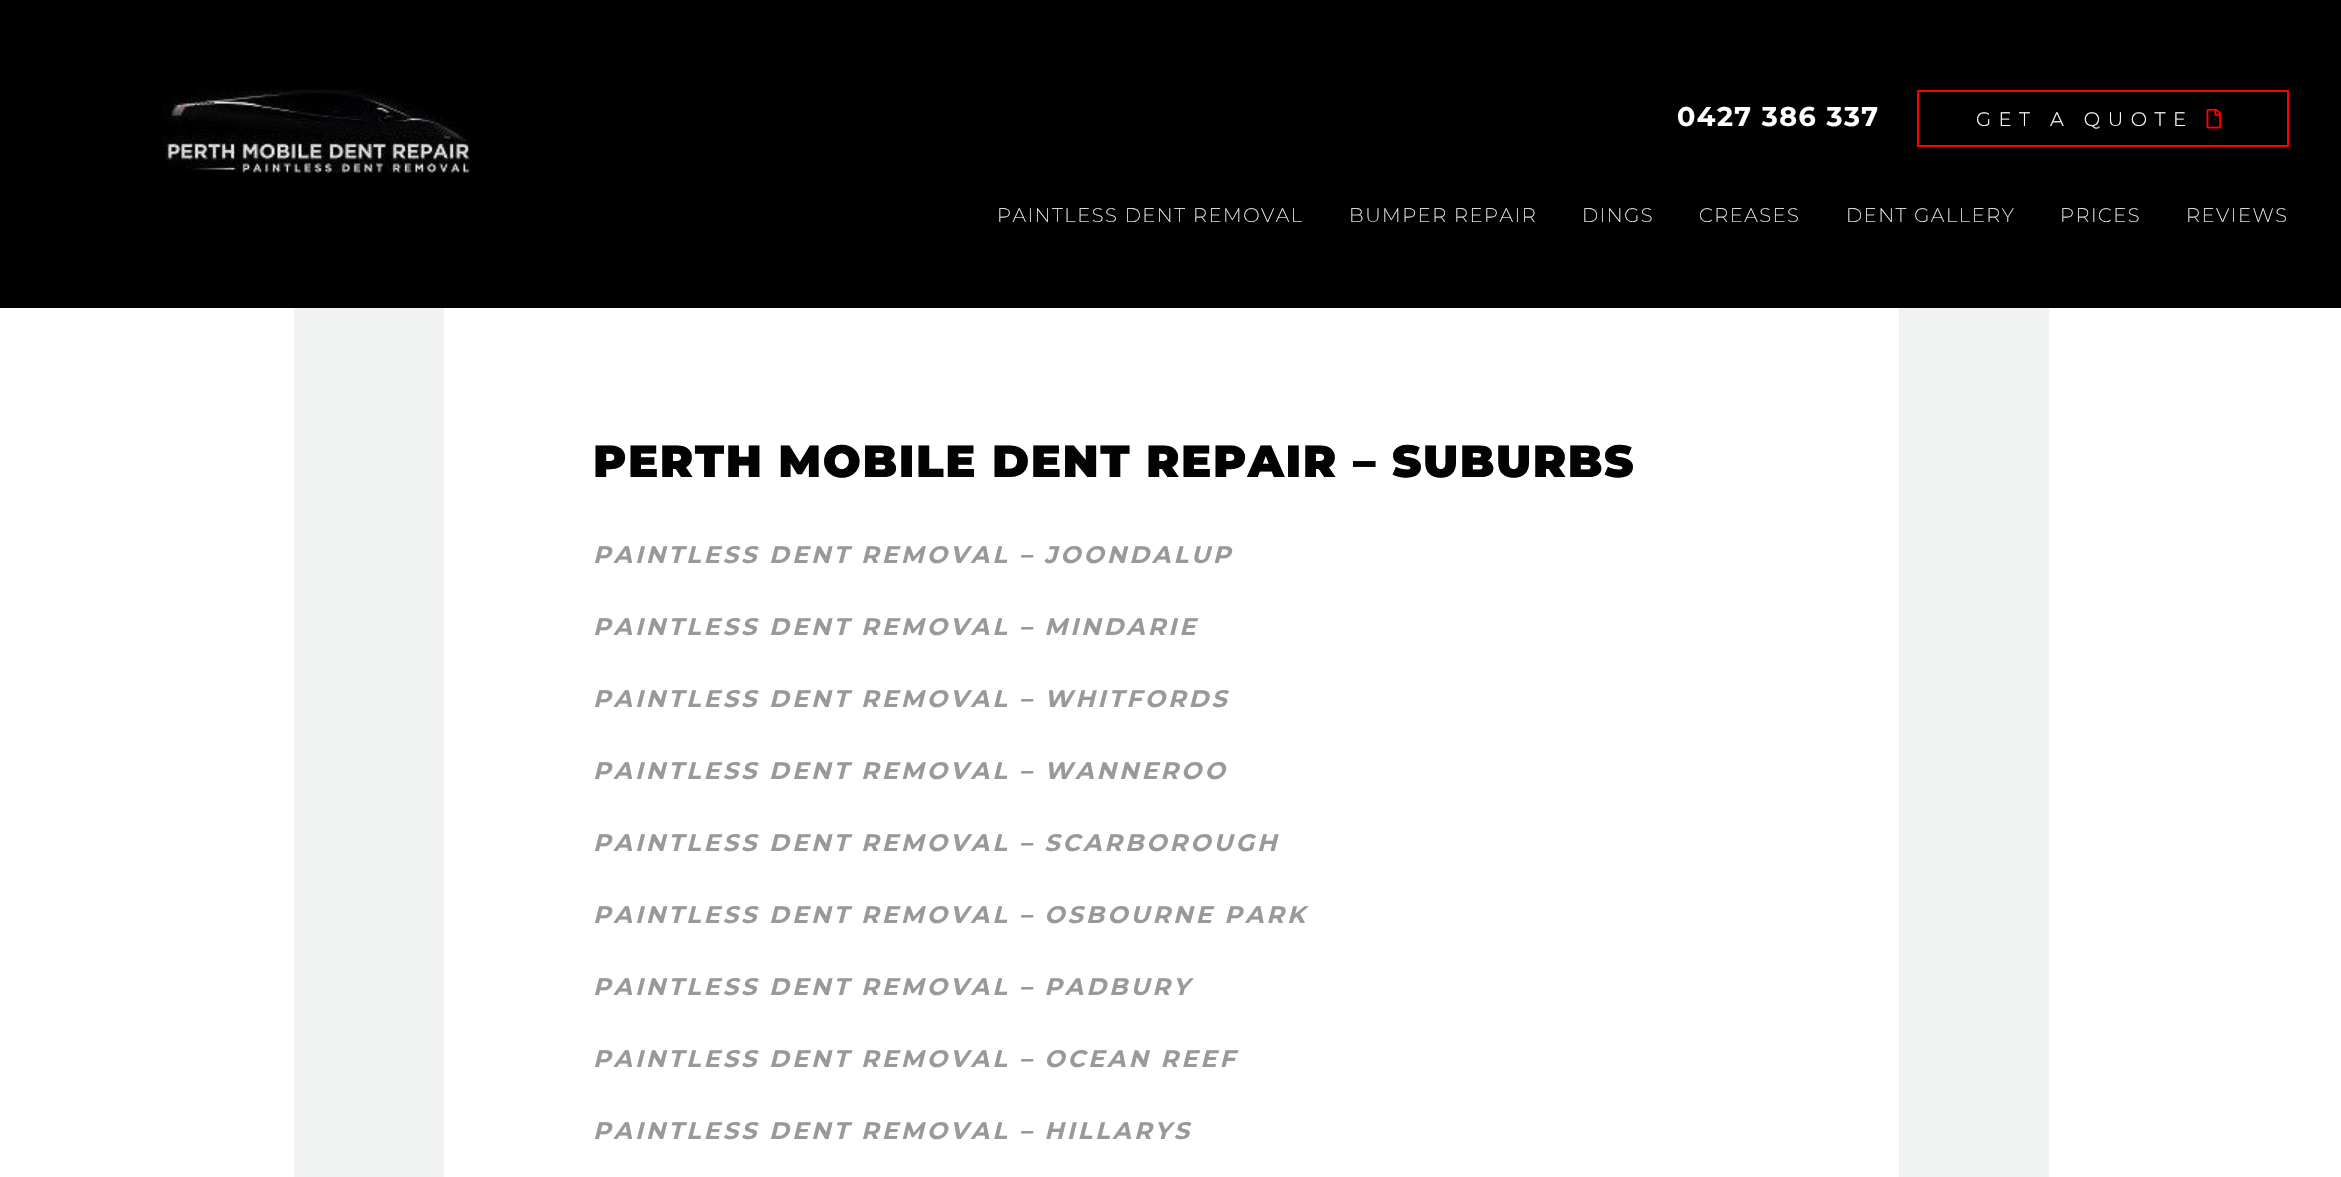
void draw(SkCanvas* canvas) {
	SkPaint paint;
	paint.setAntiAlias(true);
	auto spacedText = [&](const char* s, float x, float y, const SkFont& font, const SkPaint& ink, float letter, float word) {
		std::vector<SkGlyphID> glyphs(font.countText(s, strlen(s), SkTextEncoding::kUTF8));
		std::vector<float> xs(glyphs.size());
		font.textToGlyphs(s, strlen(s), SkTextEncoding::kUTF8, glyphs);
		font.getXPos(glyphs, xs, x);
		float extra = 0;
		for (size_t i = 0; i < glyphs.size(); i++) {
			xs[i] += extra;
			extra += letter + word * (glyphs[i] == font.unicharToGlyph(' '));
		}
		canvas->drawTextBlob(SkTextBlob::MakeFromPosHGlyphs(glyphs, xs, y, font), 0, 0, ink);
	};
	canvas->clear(0xffffffff);
	paint.setColor(0xff000000);
	canvas->drawRect(SkRect::MakeXYWH(0, 0, 2341, 308), paint);
	canvas->drawImageRect(SkImages::DeferredFromEncodedData(SkData::MakeFromFileName("img1.png")), SkRect::MakeXYWH(162, 90, 308, 83), SkSamplingOptions());
	SkFont f1(fontMgr->matchFamilyStyle("Montserrat", SkFontStyle::Bold()), 27);
	f1.setSubpixel(true);
	paint.setColor(0xffffffff);
	spacedText("0427 386 337", 1677, 126, f1, paint, 1.5, 0);
	paint.setStroke(true);
	paint.setStrokeWidth(2);
	paint.setColor(0xffff0000);
	canvas->drawRect(SkRect::MakeXYWH(1918, 91, 370, 55), paint);
	SkFont f2(fontMgr->matchFamilyStyle("Montserrat", SkFontStyle(300, SkFontStyle::kNormal_Width, SkFontStyle::kUpright_Slant)), 19.5);
	f2.setSubpixel(true);
	paint.setStroke(false);
	paint.setColor(0xffffffff);
	spacedText("GET A QUOTE", 1976, 126, f2, paint, 7.5, 0);
	canvas->drawImageRect(SkImages::DeferredFromEncodedData(SkData::MakeFromFileName("img2.png")), SkRect::MakeXYWH(2206, 108, 16, 21), SkSamplingOptions());
	SkFont f3(fontMgr->matchFamilyStyle("Montserrat", SkFontStyle(200, SkFontStyle::kNormal_Width, SkFontStyle::kUpright_Slant)), 19.5);
	f3.setSubpixel(true);
	spacedText("PAINTLESS DENT REMOVAL", 997, 222, f3, paint, 1.5, 0);
	spacedText("BUMPER REPAIR", 1349, 222, f3, paint, 1.5, 0);
	spacedText("DINGS", 1582, 222, f3, paint, 1.5, 0);
	spacedText("CREASES", 1699, 222, f3, paint, 1.5, 0);
	spacedText("DENT GALLERY", 1846, 222, f3, paint, 1.5, 0);
	spacedText("PRICES", 2060, 222, f3, paint, 1.5, 0);
	spacedText("REVIEWS", 2186, 222, f3, paint, 1.5, 0);
	paint.setColor(0xfff1f2f2);
	canvas->drawRect(SkRect::MakeXYWH(294, 308, 1755, 869), paint);
	paint.setColor(0xffffffff);
	canvas->drawRect(SkRect::MakeXYWH(444, 308, 1455, 869), paint);
	SkFont f4(fontMgr->matchFamilyStyle("Montserrat", SkFontStyle(900, SkFontStyle::kNormal_Width, SkFontStyle::kUpright_Slant)), 45);
	f4.setSubpixel(true);
	paint.setColor(0xff030303);
	spacedText("PERTH MOBILE DENT REPAIR – SUBURBS", 593, 477, f4, paint, 1.5, 0);
	SkFont f5(fontMgr->matchFamilyStyle("Montserrat", SkFontStyle::BoldItalic()), 24);
	f5.setSubpixel(true);
	paint.setColor(0xff999999);
	spacedText("PAINTLESS DENT REMOVAL – JOONDALUP", 593, 563, f5, paint, 3, 0);
	spacedText("PAINTLESS DENT REMOVAL – MINDARIE", 593, 635, f5, paint, 3, 0);
	spacedText("PAINTLESS DENT REMOVAL – WHITFORDS", 593, 707, f5, paint, 3, 0);
	spacedText("PAINTLESS DENT REMOVAL – WANNEROO", 593, 779, f5, paint, 3, 0);
	spacedText("PAINTLESS DENT REMOVAL – SCARBOROUGH", 593, 851, f5, paint, 3, 0);
	spacedText("PAINTLESS DENT REMOVAL – OSBOURNE PARK", 593, 923, f5, paint, 3, 0);
	spacedText("PAINTLESS DENT REMOVAL – PADBURY", 593, 995, f5, paint, 3, 0);
	spacedText("PAINTLESS DENT REMOVAL – OCEAN REEF", 593, 1067, f5, paint, 3, 0);
	spacedText("PAINTLESS DENT REMOVAL – HILLARYS", 593, 1139, f5, paint, 3, 0);
}
